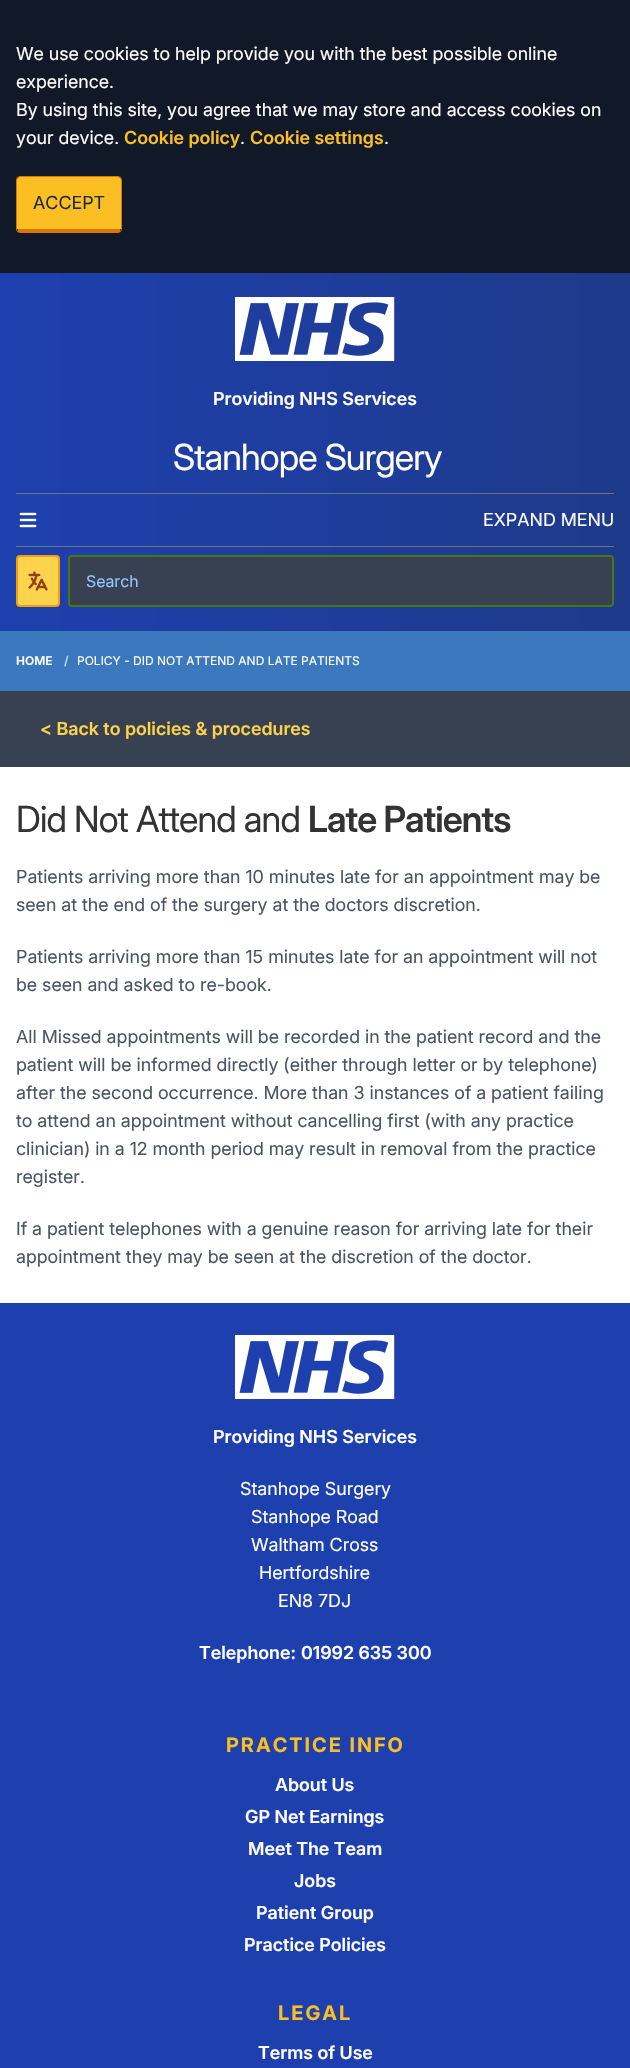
void draw(SkCanvas* canvas) {
	SkPaint paint;
	paint.setAntiAlias(true);
	auto spacedText = [&](const char* s, float x, float y, const SkFont& font, const SkPaint& ink, float letter, float word) {
		std::vector<SkGlyphID> glyphs(font.countText(s, strlen(s), SkTextEncoding::kUTF8));
		std::vector<float> xs(glyphs.size());
		font.textToGlyphs(s, strlen(s), SkTextEncoding::kUTF8, glyphs);
		font.getXPos(glyphs, xs, x);
		float extra = 0;
		for (size_t i = 0; i < glyphs.size(); i++) {
			xs[i] += extra;
			extra += letter + word * (glyphs[i] == font.unicharToGlyph(' '));
		}
		canvas->drawTextBlob(SkTextBlob::MakeFromPosHGlyphs(glyphs, xs, y, font), 0, 0, ink);
	};
	auto svgPath = [&](const char* data, bool evenOdd = false) {
		SkPath result = *SkParsePath::FromSVGString(data);
		if (evenOdd) result.setFillType(SkPathFillType::kEvenOdd);
		return result;
	};
	canvas->clear(0xff111827);
	SkFont f1(fontMgr->matchFamilyStyle("Inter", SkFontStyle::Normal()), 18);
	f1.setSubpixel(true);
	paint.setColor(0xffffffff);
	canvas->drawString("We use cookies to help provide you with the best possible online", 16, 60, f1, paint);
	canvas->drawString("experience.", 16, 88, f1, paint);
	canvas->drawString("By using this site, you agree that we may store and access cookies on", 16, 116, f1, paint);
	canvas->drawString("your device.", 16, 144, f1, paint);
	SkFont f2(fontMgr->matchFamilyStyle("Inter", SkFontStyle(600, SkFontStyle::kNormal_Width, SkFontStyle::kUpright_Slant)), 18);
	f2.setSubpixel(true);
	paint.setColor(0xfffbbf24);
	canvas->drawString("Cookie policy", 124, 144, f2, paint);
	paint.setColor(0xffffffff);
	canvas->drawString(".", 240, 144, f1, paint);
	paint.setColor(0xfffbbf24);
	canvas->drawString("Cookie settings", 250, 144, f2, paint);
	paint.setColor(0xffffffff);
	canvas->drawString(".", 384, 144, f1, paint);
	paint.setColor(0xfffbbf24);
	canvas->drawPath(svgPath("M20 177H118C120 177 121 178 121 180V229H17V180C17 178 18 177 20 177Z"), paint);
	paint.setStroke(true);
	paint.setStrokeWidth(1);
	paint.setColor(0xffd97706);
	canvas->drawRoundRect(SkRect::MakeXYWH(16.5, 176.5, 105, 56), 3.5, 3.5, paint);
	paint.setStroke(false);
	canvas->drawRect(SkRect::MakeXYWH(18, 229, 102, 3), paint);
	paint.setColor(0xff1f2937);
	canvas->drawString("ACCEPT", 33, 209, f1, paint);
	{
		const SkColor colors[] = {0xff1e40af, 0xff1e3a8a};
		const float stops[] = {0, 1};
		const SkPoint ends[] = {{0, 452}, {630, 452}};
		paint.setShader(SkGradientShader::MakeLinear(ends, colors, stops, 2, SkTileMode::kClamp));
		paint.setAlpha(255);
	}
	canvas->drawRect(SkRect::MakeXYWH(0, 273, 630, 358), paint);
	canvas->drawImageRect(SkImages::DeferredFromEncodedData(SkData::MakeFromFileName("img1.png")), SkRect::MakeXYWH(235, 297, 160, 64), SkSamplingOptions());
	paint.setShader(nullptr);
	paint.setColor(0xffffffff);
	canvas->drawString("Providing NHS Services", 213, 405, f2, paint);
	paint.setColor(0xff6b7280);
	canvas->drawRect(SkRect::MakeXYWH(16, 493, 598, 1), paint);
	SkFont f3(fontMgr->matchFamilyStyle("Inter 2", SkFontStyle::Normal()), 36);
	f3.setSubpixel(true);
	paint.setColor(0xffffffff);
	spacedText("Stanhope Surgery", 173, 470, f3, paint, -0.9, 0);
	paint.setColor(0xff6b7280);
	canvas->drawRect(SkRect::MakeXYWH(16, 546, 598, 1), paint);
	canvas->drawImageRect(SkImages::DeferredFromEncodedData(SkData::MakeFromFileName("img2.png")), SkRect::MakeXYWH(19, 512, 18, 16), SkSamplingOptions());
	paint.setColor(0xffffffff);
	canvas->drawString("EXPAND MENU", 483, 526, f1, paint);
	paint.setColor(0xfffcd34d);
	canvas->drawRoundRect(SkRect::MakeXYWH(17, 556, 42, 50), 3, 3, paint);
	paint.setStroke(true);
	paint.setStrokeWidth(2);
	paint.setColor(0xfff59e0b);
	canvas->drawRoundRect(SkRect::MakeXYWH(17, 556, 42, 50), 3, 3, paint);
	canvas->drawImageRect(SkImages::DeferredFromEncodedData(SkData::MakeFromFileName("img3.png")), SkRect::MakeXYWH(28, 571, 20, 20), SkSamplingOptions());
	paint.setStroke(false);
	paint.setColor(0xff374151);
	canvas->drawRoundRect(SkRect::MakeXYWH(69, 556, 544, 50), 3, 3, paint);
	paint.setStroke(true);
	paint.setColor(0xff487517);
	canvas->drawRoundRect(SkRect::MakeXYWH(69, 556, 544, 50), 3, 3, paint);
	SkFont f4(fontMgr->matchFamilyStyle("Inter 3", SkFontStyle::Normal()), 16);
	f4.setSubpixel(true);
	paint.setStroke(false);
	paint.setColor(0xff93c5fd);
	canvas->drawString("Search", 86, 587, f4, paint);
	paint.setColor(0xff3b78be);
	canvas->drawRect(SkRect::MakeXYWH(0, 631, 630, 60), paint);
	SkFont f5(fontMgr->matchFamilyStyle("Inter 3", SkFontStyle(600, SkFontStyle::kNormal_Width, SkFontStyle::kUpright_Slant)), 12);
	f5.setSubpixel(true);
	paint.setColor(0xffffffff);
	canvas->drawString("HOME", 16, 665, f5, paint);
	paint.setColor(0xffc4d7ec);
	canvas->drawString("/", 64, 665, f5, paint);
	SkFont f6(fontMgr->matchFamilyStyle("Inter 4", SkFontStyle::Normal()), 12);
	f6.setSubpixel(true);
	paint.setColor(0xffffffff);
	canvas->drawString("POLICY - DID NOT ATTEND AND LATE PATIENTS", 77, 665, f6, paint);
	paint.setColor(0xff374151);
	canvas->drawRect(SkRect::MakeXYWH(0, 691, 630, 76), paint);
	paint.setColor(0xfffcd34d);
	canvas->drawString("< Back to policies & procedures", 40, 735, f2, paint);
	paint.setColor(0xffffffff);
	canvas->drawRect(SkRect::MakeXYWH(0, 767, 630, 536), paint);
	paint.setColor(0xff333333);
	spacedText("Did Not Attend and", 16, 832, f3, paint, -0.9, 0);
	SkFont f7(fontMgr->matchFamilyStyle("Inter 2", SkFontStyle(600, SkFontStyle::kNormal_Width, SkFontStyle::kUpright_Slant)), 36);
	f7.setSubpixel(true);
	spacedText("Late Patients", 308, 832, f7, paint, -0.9, 0);
	paint.setColor(0xff4b5563);
	canvas->drawString("Patients arriving more than 10 minutes late for an appointment may be", 16, 883, f1, paint);
	canvas->drawString("seen at the end of the surgery at the doctors discretion.", 16, 911, f1, paint);
	canvas->drawString("Patients arriving more than 15 minutes late for an appointment will not", 16, 963, f1, paint);
	canvas->drawString("be seen and asked to re-book.", 16, 991, f1, paint);
	canvas->drawString("All Missed appointments will be recorded in the patient record and the", 16, 1043, f1, paint);
	canvas->drawString("patient will be informed directly (either through letter or by telephone)", 16, 1071, f1, paint);
	canvas->drawString("after the second occurrence. More than 3 instances of a patient failing", 16, 1099, f1, paint);
	canvas->drawString("to attend an appointment without cancelling first (with any practice", 16, 1127, f1, paint);
	canvas->drawString("clinician) in a 12 month period may result in removal from the practice", 16, 1155, f1, paint);
	canvas->drawString("register.", 16, 1183, f1, paint);
	canvas->drawString("If a patient telephones with a genuine reason for arriving late for their", 16, 1235, f1, paint);
	canvas->drawString("appointment they may be seen at the discretion of the doctor.", 16, 1263, f1, paint);
	paint.setColor(0xff1e40af);
	canvas->drawRect(SkRect::MakeXYWH(0, 1303, 630, 765), paint);
	canvas->drawImageRect(SkImages::DeferredFromEncodedData(SkData::MakeFromFileName("img4.png")), SkRect::MakeXYWH(235, 1335, 160, 64), SkSamplingOptions());
	paint.setColor(0xffffffff);
	canvas->drawString("Providing NHS Services", 213, 1443, f2, paint);
	canvas->drawString("Stanhope Surgery", 240, 1495, f1, paint);
	canvas->drawString("Stanhope Road", 251, 1523, f1, paint);
	canvas->drawString("Waltham Cross", 251, 1551, f1, paint);
	canvas->drawString("Hertfordshire", 259, 1579, f1, paint);
	canvas->drawString("EN8 7DJ", 278, 1607, f1, paint);
	canvas->drawString("Telephone:", 199, 1659, f2, paint);
	canvas->drawString("01992 635 300", 301, 1659, f2, paint);
	SkFont f8(fontMgr->matchFamilyStyle("Inter", SkFontStyle::Bold()), 20);
	f8.setSubpixel(true);
	paint.setColor(0xfffbbf24);
	spacedText("PRACTICE INFO", 226, 1752, f8, paint, 2, 0);
	paint.setColor(0xffffffff);
	canvas->drawString("About Us", 275, 1791, f2, paint);
	canvas->drawString("GP Net Earnings", 245, 1823, f2, paint);
	canvas->drawString("Meet The Team", 248, 1855, f2, paint);
	canvas->drawString("Jobs", 294, 1887, f2, paint);
	canvas->drawString("Patient Group", 256, 1919, f2, paint);
	canvas->drawString("Practice Policies", 244, 1951, f2, paint);
	paint.setColor(0xfffbbf24);
	spacedText("LEGAL", 278, 2020, f8, paint, 2, 0);
	paint.setColor(0xffffffff);
	canvas->drawString("Terms of Use", 258, 2059, f2, paint);
}
